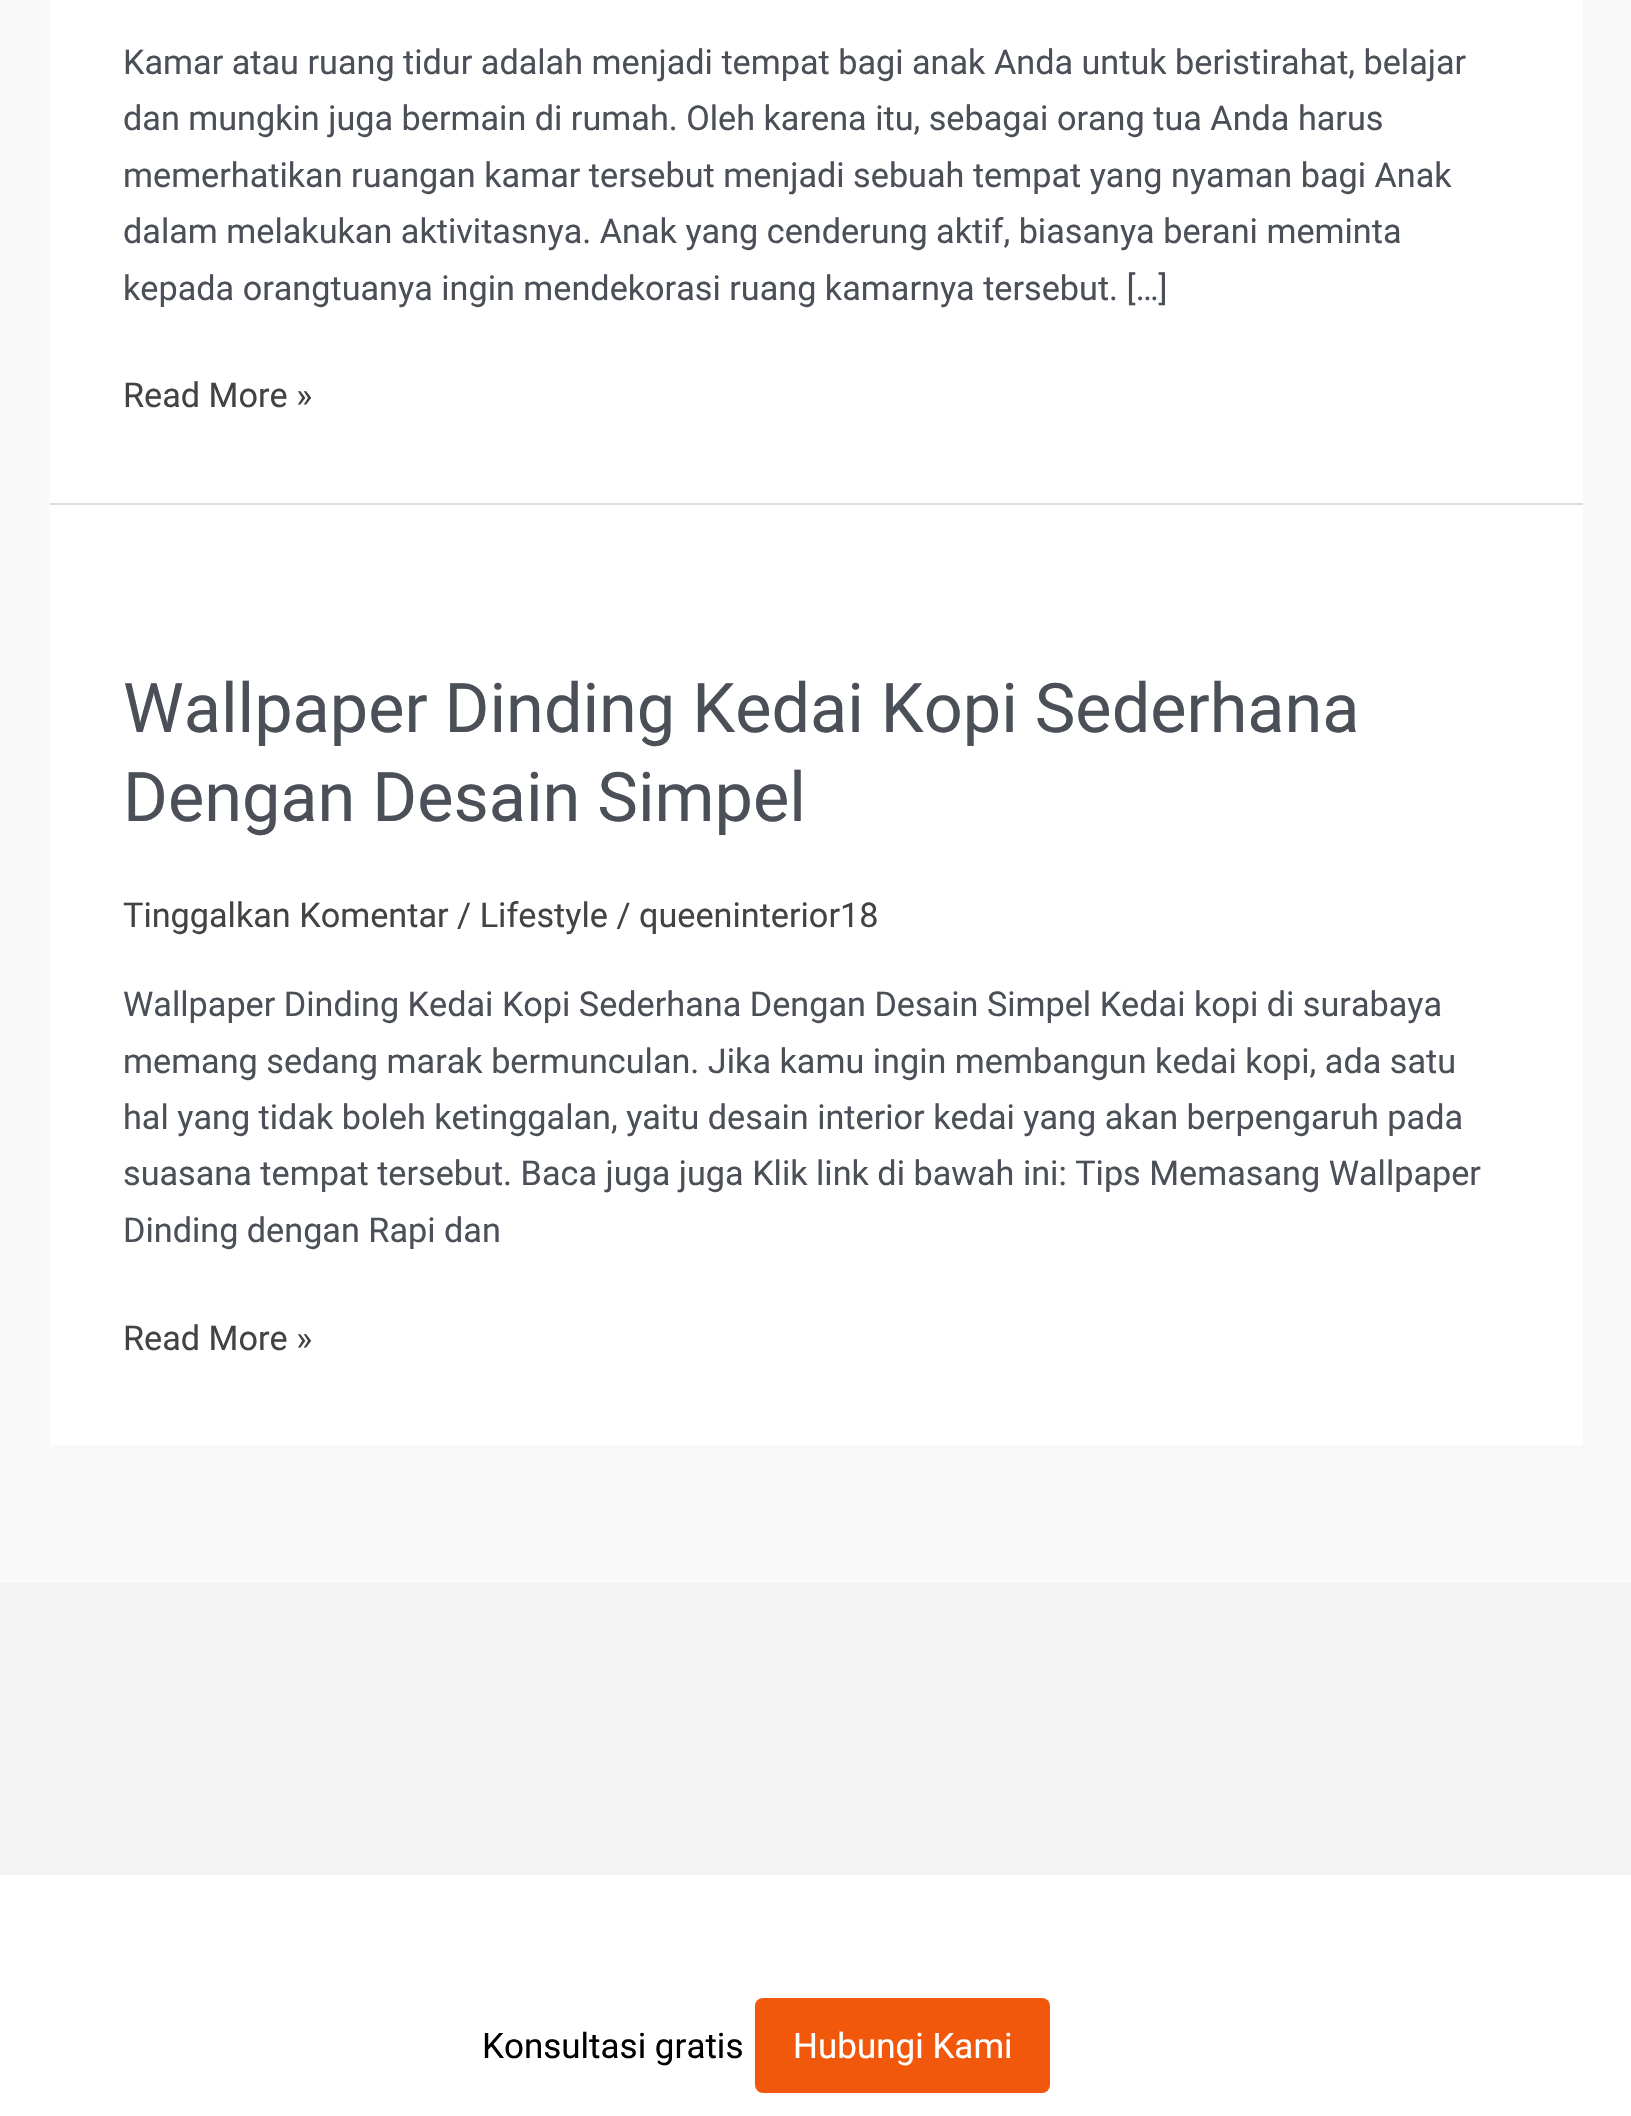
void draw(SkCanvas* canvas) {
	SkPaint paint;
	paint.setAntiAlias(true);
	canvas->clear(0xfff9f9f9);
	paint.setColor(0xffffffff);
	canvas->drawRect(SkRect::MakeXYWH(50, 0, 1533, 503), paint);
	paint.setColor(0xffdddddd);
	canvas->drawRect(SkRect::MakeXYWH(50, 503, 1533, 2), paint);
	SkFont f1(fontMgr->matchFamilyStyle("Roboto", SkFontStyle::Normal()), 34.2);
	f1.setSubpixel(true);
	paint.setColor(0xff4b4f58);
	canvas->drawString("Kamar atau ruang tidur adalah menjadi tempat bagi anak Anda untuk beristirahat, belajar", 123, 74, f1, paint);
	canvas->drawString("dan mungkin juga bermain di rumah. Oleh karena itu, sebagai orang tua Anda harus", 123, 130, f1, paint);
	canvas->drawString("memerhatikan ruangan kamar tersebut menjadi sebuah tempat yang nyaman bagi Anak", 123, 187, f1, paint);
	canvas->drawString("dalam melakukan aktivitasnya. Anak yang cenderung aktif, biasanya berani meminta", 123, 243, f1, paint);
	canvas->drawString("kepada orangtuanya ingin mendekorasi ruang kamarnya tersebut. […]", 123, 300, f1, paint);
	paint.setColor(0xff434343);
	canvas->drawString("Read More »", 123, 407, f1, paint);
	paint.setColor(0xffffffff);
	canvas->drawRect(SkRect::MakeXYWH(50, 505, 1533, 940), paint);
	SkFont f2(fontMgr->matchFamilyStyle("Roboto", SkFontStyle::Normal()), 68.4);
	f2.setSubpixel(true);
	paint.setColor(0xff4b4f58);
	canvas->drawString("Wallpaper Dinding Kedai Kopi Sederhana", 123, 732, f2, paint);
	canvas->drawString("Dengan Desain Simpel", 123, 821, f2, paint);
	paint.setColor(0xff434343);
	canvas->drawString("Tinggalkan Komentar / Lifestyle / queeninterior18", 123, 927, f1, paint);
	paint.setColor(0xff4b4f58);
	canvas->drawString("Wallpaper Dinding Kedai Kopi Sederhana Dengan Desain Simpel Kedai kopi di surabaya", 123, 1016, f1, paint);
	canvas->drawString("memang sedang marak bermunculan. Jika kamu ingin membangun kedai kopi, ada satu", 123, 1073, f1, paint);
	canvas->drawString("hal yang tidak boleh ketinggalan, yaitu desain interior kedai yang akan berpengaruh pada", 123, 1129, f1, paint);
	canvas->drawString("suasana tempat tersebut. Baca juga juga Klik link di bawah ini: Tips Memasang Wallpaper", 123, 1185, f1, paint);
	canvas->drawString("Dinding dengan Rapi dan", 123, 1242, f1, paint);
	paint.setColor(0xff434343);
	canvas->drawString("Read More »", 123, 1350, f1, paint);
	paint.setColor(0xfff3f3f4);
	canvas->drawRect(SkRect::MakeXYWH(0, 1583, 1631, 292), paint);
	paint.setColor(0xffffffff);
	canvas->drawRect(SkRect::MakeXYWH(0, 1875, 1631, 241), paint);
	SkFont f3(fontMgr->matchFamilyStyle("Roboto", SkFontStyle::Normal()), 35);
	f3.setSubpixel(true);
	paint.setColor(0xff000000);
	canvas->drawString("Konsultasi gratis", 482, 2058, f3, paint);
	paint.setColor(0xfff2580c);
	canvas->drawRoundRect(SkRect::MakeXYWH(755, 1998, 295, 95), 8, 8, paint);
	paint.setColor(0xffffffff);
	canvas->drawString("Hubungi Kami", 793, 2058, f3, paint);
}
